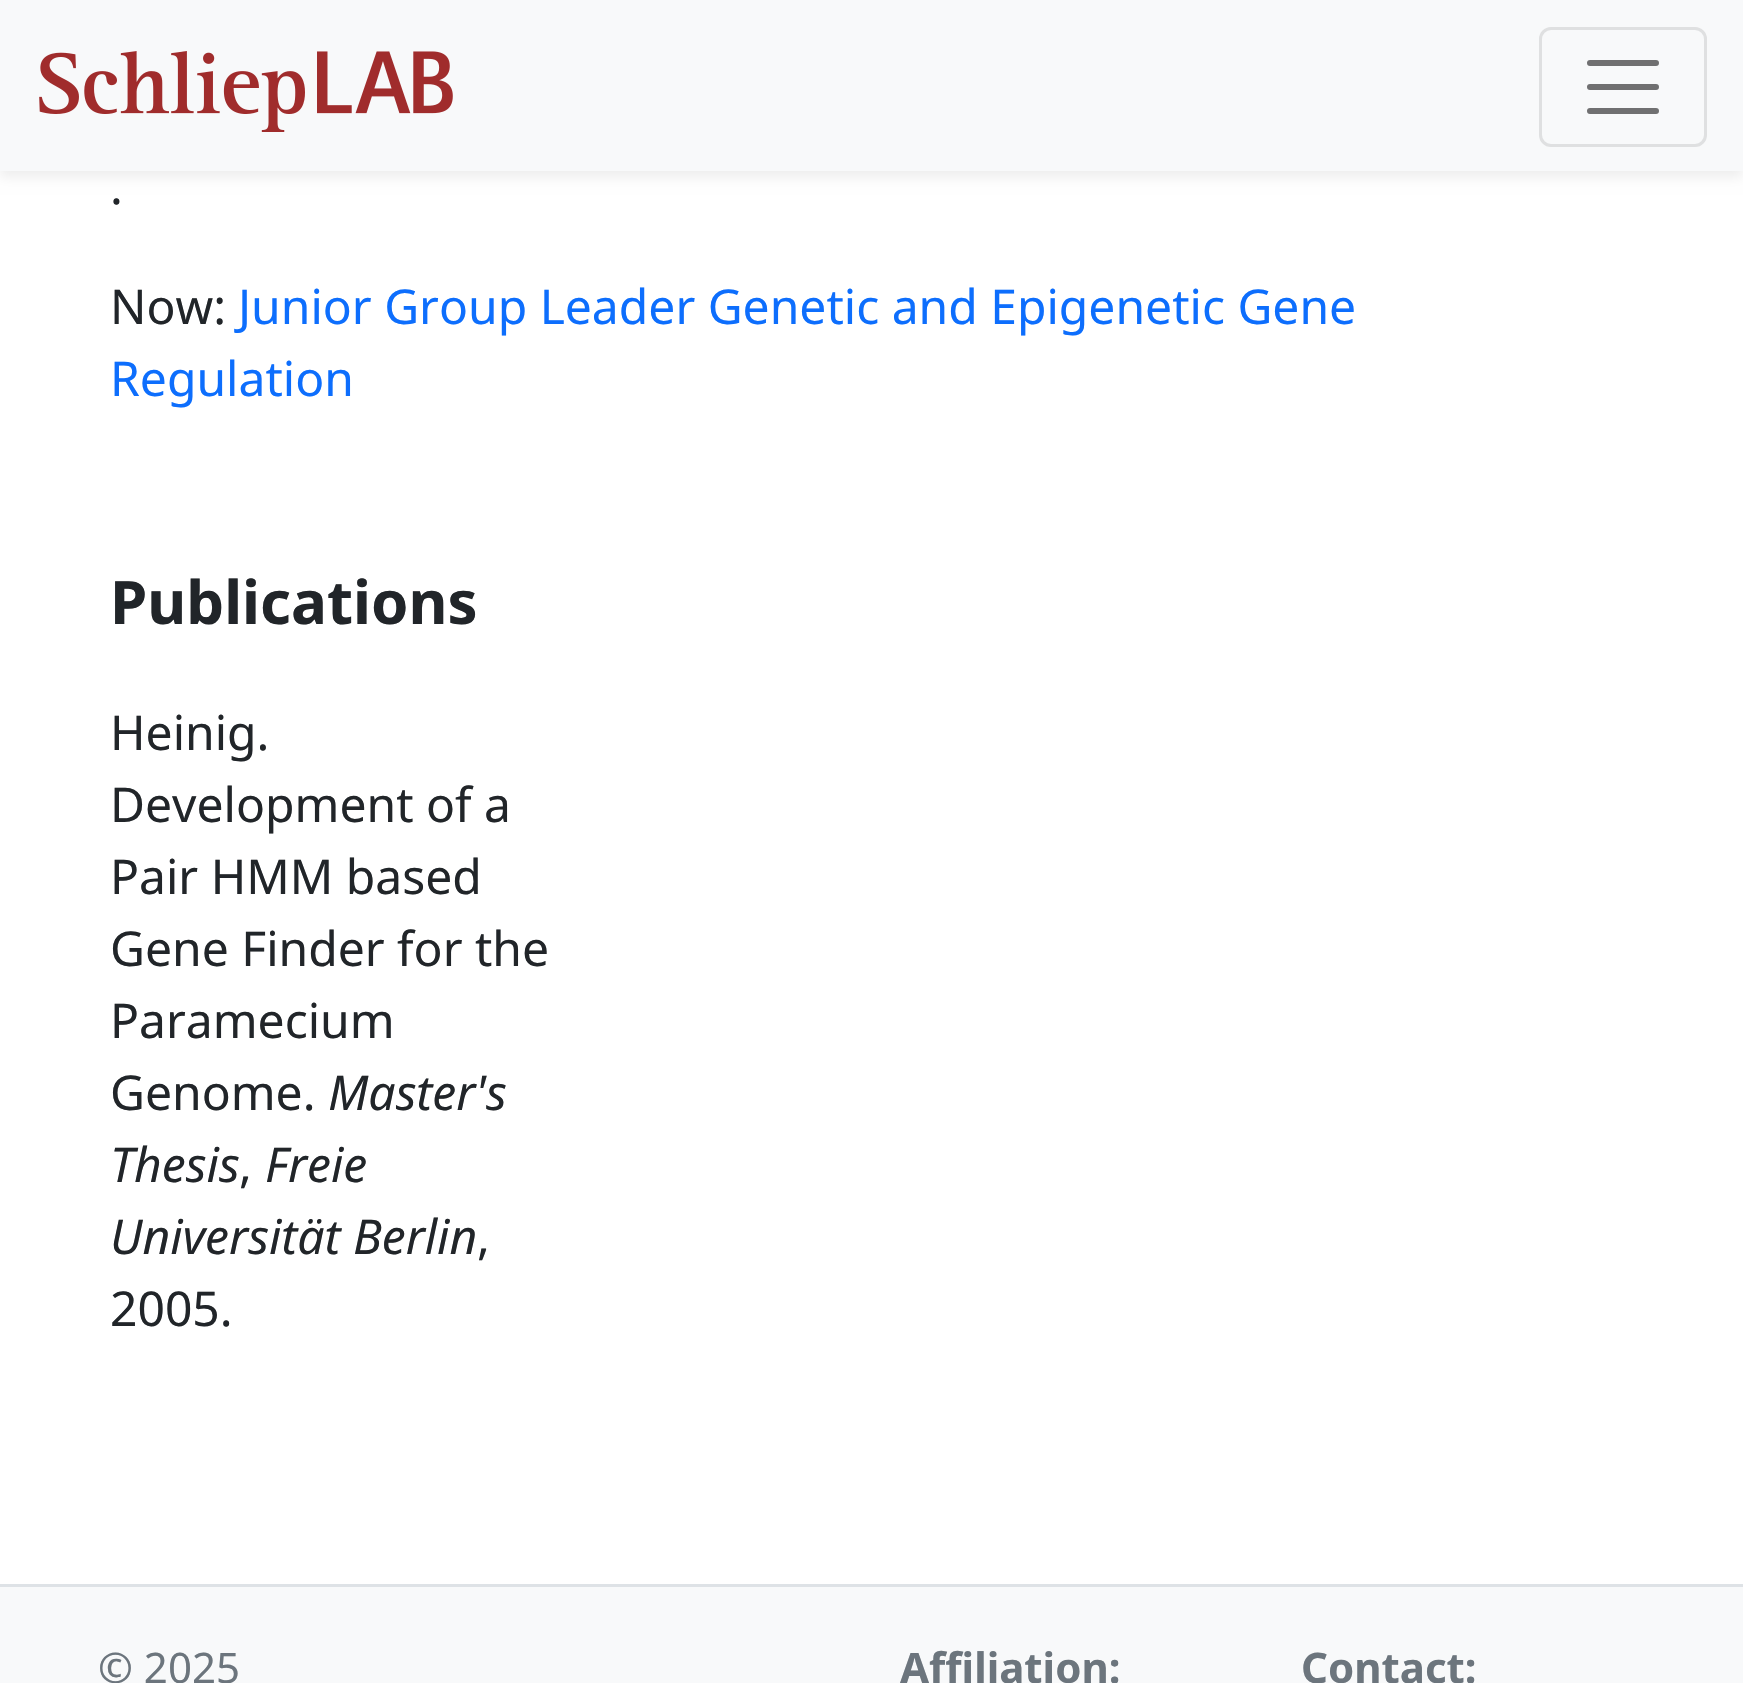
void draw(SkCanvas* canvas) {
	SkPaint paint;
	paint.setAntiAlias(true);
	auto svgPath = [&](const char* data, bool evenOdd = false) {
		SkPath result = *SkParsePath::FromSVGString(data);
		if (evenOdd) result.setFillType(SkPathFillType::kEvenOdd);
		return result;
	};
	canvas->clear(0xffffffff);
	paint.setColor(0x12000000);
	paint.setMaskFilter(SkMaskFilter::MakeBlur(kNormal_SkBlurStyle, 6));
	canvas->drawRect(SkRect::MakeXYWH(0, 6, 1743, 171), paint);
	paint.setMaskFilter(nullptr);
	paint.setColor(0xfff8f9fa);
	canvas->drawRect(SkRect::MakeXYWH(0, 0, 1743, 171), paint);
	canvas->drawImageRect(SkImages::DeferredFromEncodedData(SkData::MakeFromFileName("img1.png")), SkRect::MakeXYWH(39, 51, 414, 81), SkSamplingOptions());
	paint.setStroke(true);
	paint.setStrokeWidth(3);
	paint.setColor(0xffdfe0e1);
	canvas->drawRoundRect(SkRect::MakeXYWH(1540.5, 28.5, 165, 117), 10.5, 10.5, paint);
	paint.setStrokeWidth(6);
	paint.setStrokeCap(SkPaint::kRound_Cap);
	paint.setColor(0xff707071);
	canvas->drawPath(svgPath("M1590 63H1656M1590 87H1656M1590 111H1656"), paint);
	SkFont f1(fontMgr->matchFamilyStyle("Noto Sans", SkFontStyle::Normal()), 48);
	f1.setSubpixel(true);
	paint.setStroke(false);
	paint.setColor(0xff212529);
	canvas->drawString(".", 110, 204, f1, paint);
	canvas->drawString("Now:", 110, 324, f1, paint);
	paint.setColor(0xff0d6efd);
	canvas->drawString("Junior Group Leader Genetic and Epigenetic Gene", 238, 324, f1, paint);
	canvas->drawString("Regulation", 110, 396, f1, paint);
	SkFont f2(fontMgr->matchFamilyStyle("Noto Sans", SkFontStyle::Bold()), 60);
	f2.setSubpixel(true);
	paint.setColor(0xff212529);
	canvas->drawString("Publications", 110, 624, f2, paint);
	canvas->drawString("Heinig.", 110, 750, f1, paint);
	canvas->drawString("Development of a", 110, 822, f1, paint);
	canvas->drawString("Pair HMM based", 110, 894, f1, paint);
	canvas->drawString("Gene Finder for the", 110, 966, f1, paint);
	canvas->drawString("Paramecium", 110, 1038, f1, paint);
	canvas->drawString("Genome.", 110, 1110, f1, paint);
	SkFont f3(fontMgr->matchFamilyStyle("Noto Sans", SkFontStyle::Italic()), 48);
	f3.setSubpixel(true);
	canvas->drawString("Master's", 328, 1110, f3, paint);
	canvas->drawString("Thesis", 110, 1182, f3, paint);
	canvas->drawString(",", 239, 1182, f1, paint);
	canvas->drawString("Freie", 265, 1182, f3, paint);
	canvas->drawString("Universität Berlin", 110, 1254, f3, paint);
	canvas->drawString(",", 477, 1254, f1, paint);
	canvas->drawString("2005.", 110, 1326, f1, paint);
	paint.setColor(0xfff8f9fa);
	canvas->drawRect(SkRect::MakeXYWH(0, 1587, 1743, 96), paint);
	paint.setColor(0xffdee2e6);
	canvas->drawRect(SkRect::MakeXYWH(0, 1584, 1743, 3), paint);
	SkFont f4(fontMgr->matchFamilyStyle("Noto Sans", SkFontStyle::Normal()), 42);
	f4.setSubpixel(true);
	paint.setColor(0xff6c757d);
	canvas->drawString("© 2025", 98, 1683, f4, paint);
	SkFont f5(fontMgr->matchFamilyStyle("Noto Sans", SkFontStyle::Bold()), 42);
	f5.setSubpixel(true);
	canvas->drawString("Affiliation:", 900, 1683, f5, paint);
	canvas->drawString("Contact:", 1301, 1683, f5, paint);
}
